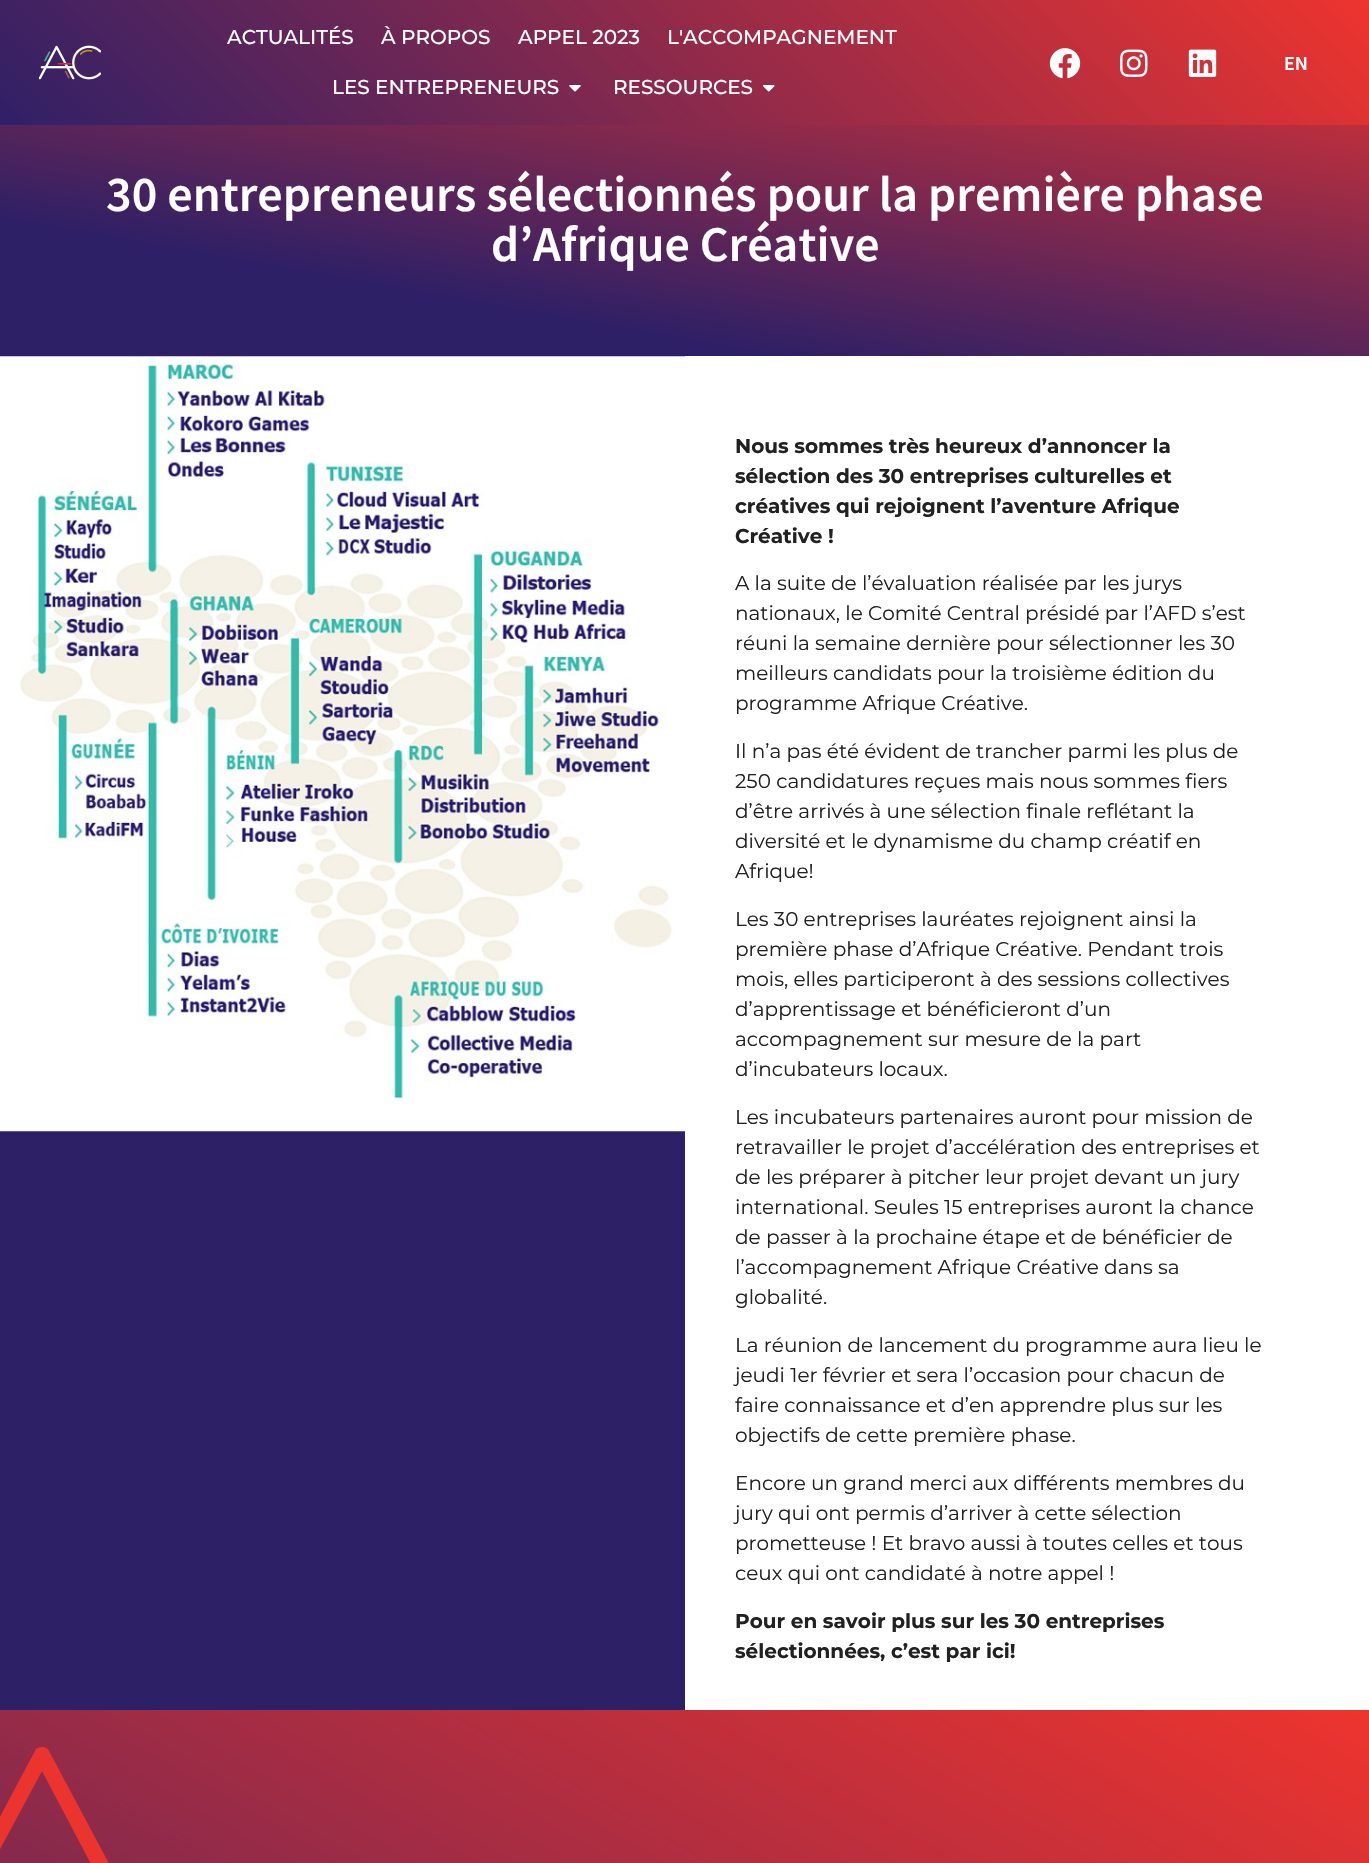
void draw(SkCanvas* canvas) {
	SkPaint paint;
	paint.setAntiAlias(true);
	auto svgPath = [&](const char* data, bool evenOdd = false) {
		SkPath result = *SkParsePath::FromSVGString(data);
		if (evenOdd) result.setFillType(SkPathFillType::kEvenOdd);
		return result;
	};
	canvas->clear(0xffffffff);
	{
		const SkColor colors[] = {0xff2f2067, 0xffee342e};
		const float stops[] = {0, 1};
		const SkPoint ends[] = {{311, 436}, {1059, -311}};
		paint.setShader(SkGradientShader::MakeLinear(ends, colors, stops, 2, SkTileMode::kClamp));
		paint.setAlpha(255);
	}
	canvas->drawRect(SkRect::MakeXYWH(0, 0, 1369, 125), paint);
	canvas->drawImageRect(SkImages::DeferredFromEncodedData(SkData::MakeFromFileName("img1.png")), SkRect::MakeXYWH(39, 45, 62, 35), SkSamplingOptions());
	SkFont f1(fontMgr->matchFamilyStyle("Montserrat", SkFontStyle(500, SkFontStyle::kNormal_Width, SkFontStyle::kUpright_Slant)), 20);
	f1.setSubpixel(true);
	paint.setShader(nullptr);
	paint.setColor(0xffffffff);
	canvas->drawString("ACTUALITÉS", 227, 44, f1, paint);
	canvas->drawString("À PROPOS", 381, 44, f1, paint);
	canvas->drawString("APPEL 2023", 518, 44, f1, paint);
	canvas->drawString("L'ACCOMPAGNEMENT", 667, 44, f1, paint);
	canvas->drawString("LES ENTREPRENEURS", 332, 94, f1, paint);
	canvas->drawImageRect(SkImages::DeferredFromEncodedData(SkData::MakeFromFileName("img2.png")), SkRect::MakeXYWH(569, 85, 12, 7), SkSamplingOptions());
	canvas->drawString("RESSOURCES", 613, 94, f1, paint);
	canvas->drawImageRect(SkImages::DeferredFromEncodedData(SkData::MakeFromFileName("img3.png")), SkRect::MakeXYWH(763, 85, 12, 7), SkSamplingOptions());
	canvas->drawImageRect(SkImages::DeferredFromEncodedData(SkData::MakeFromFileName("img4.png")), SkRect::MakeXYWH(1049, 48, 32, 31), SkSamplingOptions());
	canvas->drawImageRect(SkImages::DeferredFromEncodedData(SkData::MakeFromFileName("img5.png")), SkRect::MakeXYWH(1120, 49, 28, 28), SkSamplingOptions());
	canvas->drawImageRect(SkImages::DeferredFromEncodedData(SkData::MakeFromFileName("img6.png")), SkRect::MakeXYWH(1188, 49, 29, 28), SkSamplingOptions());
	SkFont f2(fontMgr->matchFamilyStyle("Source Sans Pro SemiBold", SkFontStyle(600, SkFontStyle::kNormal_Width, SkFontStyle::kUpright_Slant)), 20);
	f2.setSubpixel(true);
	canvas->drawString("EN", 1284, 70, f2, paint);
	{
		const SkColor colors[] = {0xff2e2066, 0xffee342e};
		const float stops[] = {0.23, 1};
		const SkPoint ends[] = {{634, 468}, {736, -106}};
		paint.setShader(SkGradientShader::MakeLinear(ends, colors, stops, 2, SkTileMode::kClamp));
		paint.setAlpha(255);
	}
	canvas->drawRect(SkRect::MakeXYWH(0, 125, 1369, 231), paint);
	SkFont f3(fontMgr->matchFamilyStyle("Source Sans Pro SemiBold", SkFontStyle(600, SkFontStyle::kNormal_Width, SkFontStyle::kUpright_Slant)), 50);
	f3.setSubpixel(true);
	paint.setShader(nullptr);
	paint.setColor(0xffffffff);
	canvas->drawString("30 entrepreneurs sélectionnés pour la première phase", 106, 211, f3, paint);
	canvas->drawString("d’Afrique Créative", 491, 261, f3, paint);
	paint.setColor(0xff2e2066);
	canvas->drawRect(SkRect::MakeXYWH(0, 356, 685, 1354), paint);
	canvas->drawImageRect(SkImages::DeferredFromEncodedData(SkData::MakeFromFileName("img7.png")), SkRect::MakeXYWH(0, 356, 685, 776), SkSamplingOptions());
	SkFont f4(fontMgr->matchFamilyStyle("Montserrat", SkFontStyle::Bold()), 20);
	f4.setSubpixel(true);
	paint.setColor(0xff212121);
	canvas->drawString("Nous sommes très heureux d’annoncer la", 735, 453, f4, paint);
	canvas->drawString("sélection des 30 entreprises culturelles et", 735, 483, f4, paint);
	canvas->drawString("créatives qui rejoignent l’aventure Afrique", 735, 513, f4, paint);
	canvas->drawString("Créative !", 735, 543, f4, paint);
	SkFont f5(fontMgr->matchFamilyStyle("Montserrat", SkFontStyle::Normal()), 20);
	f5.setSubpixel(true);
	canvas->drawString("A la suite de l’évaluation réalisée par les jurys", 735, 590, f5, paint);
	canvas->drawString("nationaux, le Comité Central présidé par l’AFD s’est", 735, 620, f5, paint);
	canvas->drawString("réuni la semaine dernière pour sélectionner les 30", 735, 650, f5, paint);
	canvas->drawString("meilleurs candidats pour la troisième édition du", 735, 680, f5, paint);
	canvas->drawString("programme Afrique Créative.", 735, 710, f5, paint);
	canvas->drawString("Il n’a pas été évident de trancher parmi les plus de", 735, 758, f5, paint);
	canvas->drawString("250 candidatures reçues mais nous sommes fiers", 735, 788, f5, paint);
	canvas->drawString("d’être arrivés à une sélection finale reflétant la", 735, 818, f5, paint);
	canvas->drawString("diversité et le dynamisme du champ créatif en", 735, 848, f5, paint);
	canvas->drawString("Afrique !", 735, 878, f5, paint);
	canvas->drawString("Les 30 entreprises lauréates rejoignent ainsi la", 735, 926, f5, paint);
	canvas->drawString("première phase d’Afrique Créative. Pendant trois", 735, 956, f5, paint);
	canvas->drawString("mois, elles participeront à des sessions collectives", 735, 986, f5, paint);
	canvas->drawString("d’apprentissage et bénéficieront d’un", 735, 1016, f5, paint);
	canvas->drawString("accompagnement sur mesure de la part", 735, 1046, f5, paint);
	canvas->drawString("d’incubateurs locaux.", 735, 1076, f5, paint);
	canvas->drawString("Les incubateurs partenaires auront pour mission de", 735, 1124, f5, paint);
	canvas->drawString("retravailler le projet d’accélération des entreprises et", 735, 1154, f5, paint);
	canvas->drawString("de les préparer à pitcher leur projet devant un jury", 735, 1184, f5, paint);
	canvas->drawString("international. Seules 15 entreprises auront la chance", 735, 1214, f5, paint);
	canvas->drawString("de passer à la prochaine étape et de bénéficier de", 735, 1244, f5, paint);
	canvas->drawString("l’accompagnement Afrique Créative dans sa", 735, 1274, f5, paint);
	canvas->drawString("globalité.", 735, 1304, f5, paint);
	canvas->drawString("La réunion de lancement du programme aura lieu le", 735, 1352, f5, paint);
	canvas->drawString("jeudi 1er février et sera l’occasion pour chacun de", 735, 1382, f5, paint);
	canvas->drawString("faire connaissance et d’en apprendre plus sur les", 735, 1412, f5, paint);
	canvas->drawString("objectifs de cette première phase.", 735, 1442, f5, paint);
	canvas->drawString("Encore un grand merci aux différents membres du", 735, 1490, f5, paint);
	canvas->drawString("jury qui ont permis d’arriver à cette sélection", 735, 1520, f5, paint);
	canvas->drawString("prometteuse ! Et bravo aussi à toutes celles et tous", 735, 1550, f5, paint);
	canvas->drawString("ceux qui ont candidaté à notre appel !", 735, 1580, f5, paint);
	canvas->drawString("Pour en savoir plus sur les 30 entreprises", 735, 1628, f4, paint);
	canvas->drawString("sélectionnées, c’est par ici!", 735, 1658, f4, paint);
	{
		const SkColor colors[] = {0xff2e2066, 0xffee342e};
		const float stops[] = {0, 1};
		const SkPoint ends[] = {{313, 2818}, {1057, 1529}};
		paint.setShader(SkGradientShader::MakeLinear(ends, colors, stops, 2, SkTileMode::kClamp));
		paint.setAlpha(255);
	}
	canvas->drawRect(SkRect::MakeXYWH(0, 1710, 1369, 153), paint);
	paint.setShader(nullptr);
	paint.setColor(0xffec342e);
	canvas->drawPath(svgPath("M-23 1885C-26 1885-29 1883-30 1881C-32 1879-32 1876-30 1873L35 1751C36 1748 39 1747 42 1747C45 1747 47 1748 49 1751L114 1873C116 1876 116 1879 114 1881C113 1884 110 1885 107 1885C104 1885 101 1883 100 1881L42 1771L-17 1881C-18 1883-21 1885-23 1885Z"), paint);
}
